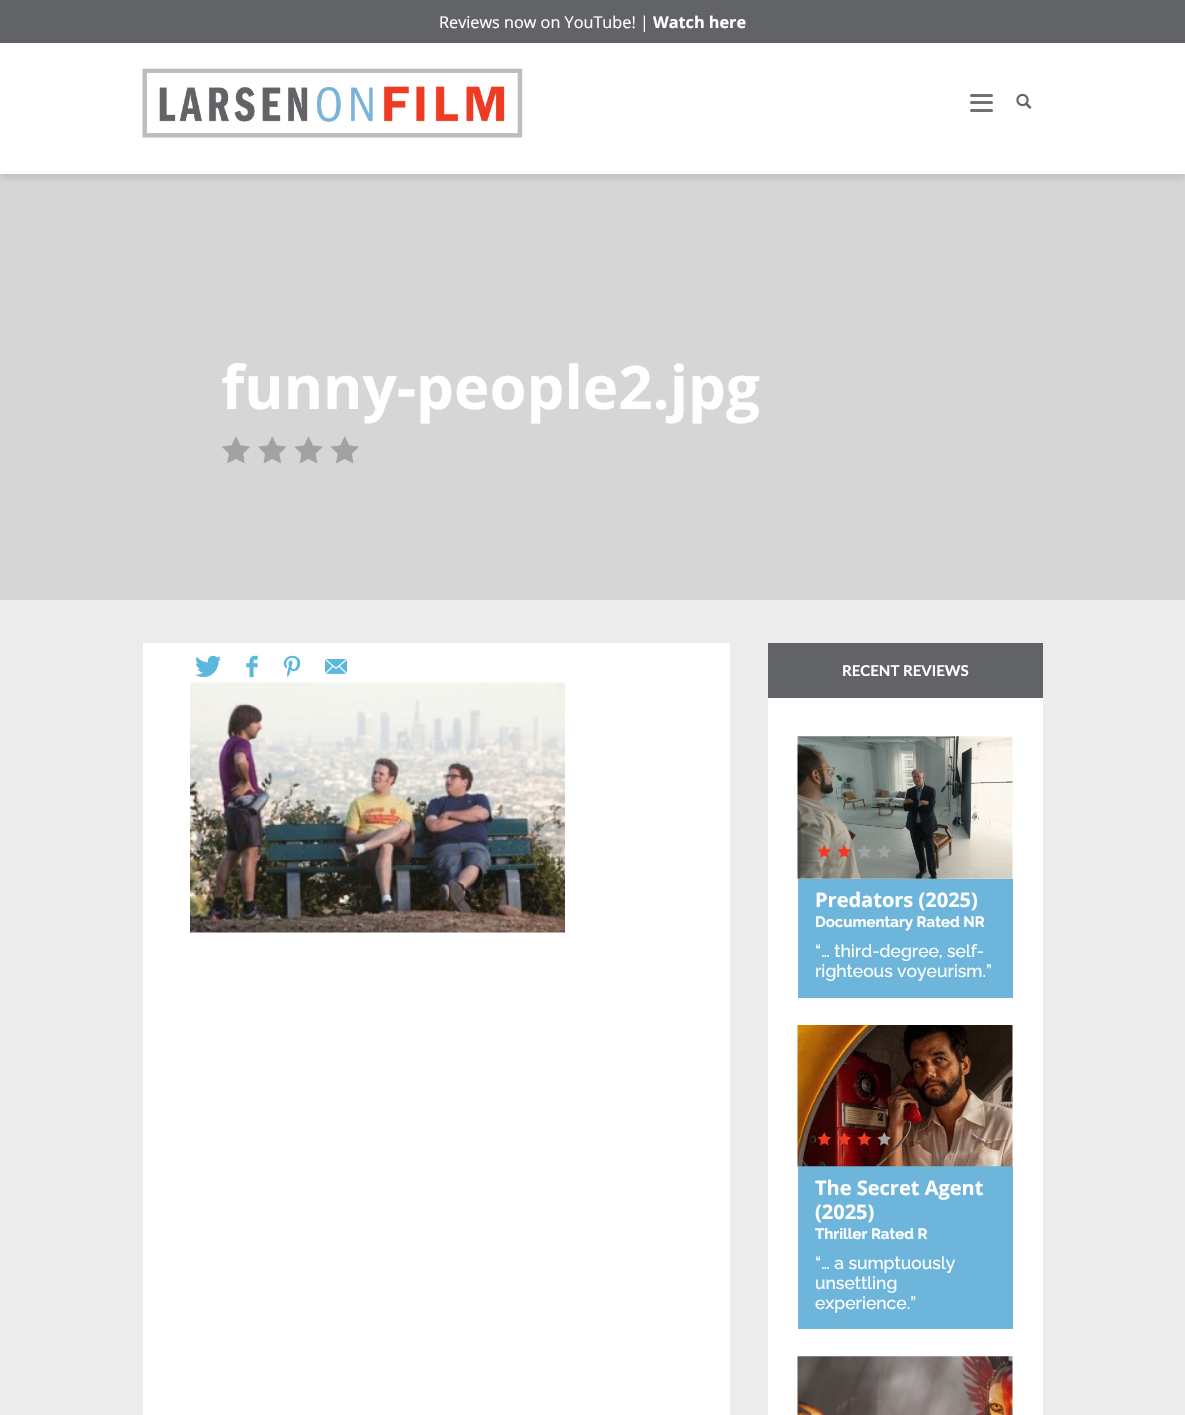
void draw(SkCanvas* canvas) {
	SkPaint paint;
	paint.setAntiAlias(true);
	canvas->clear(0xff626366);
	SkFont f1(fontMgr->matchFamilyStyle("Open Sans", SkFontStyle::Normal()), 16.25);
	f1.setSubpixel(true);
	paint.setColor(0xffffffff);
	canvas->drawString("Reviews now on YouTube! |", 439, 28, f1, paint);
	SkFont f2(fontMgr->matchFamilyStyle("Open Sans", SkFontStyle::Bold()), 16.25);
	f2.setSubpixel(true);
	canvas->drawString("Watch here", 653, 28, f2, paint);
	paint.setColor(0xffececec);
	canvas->drawRect(SkRect::MakeXYWH(0, 600, 1185, 815), paint);
	paint.setColor(0xffd6d6d6);
	canvas->drawRect(SkRect::MakeXYWH(0, 174, 1185, 426), paint);
	paint.setColor(0x1a000000);
	paint.setMaskFilter(SkMaskFilter::MakeBlur(kNormal_SkBlurStyle, 3));
	canvas->drawRect(SkRect::MakeXYWH(0, 46, 1185, 132), paint);
	paint.setMaskFilter(nullptr);
	paint.setColor(0xffffffff);
	canvas->drawRect(SkRect::MakeXYWH(0, 43, 1185, 131), paint);
	canvas->drawImageRect(SkImages::DeferredFromEncodedData(SkData::MakeFromFileName("img1.png")), SkRect::MakeXYWH(142, 68, 381, 70), SkSamplingOptions());
	paint.setColor(0xff707070);
	canvas->drawRoundRect(SkRect::MakeXYWH(970, 109, 23, 3), 1.5, 1.5, paint);
	canvas->drawRoundRect(SkRect::MakeXYWH(970, 101, 23, 3), 1.5, 1.5, paint);
	canvas->drawRoundRect(SkRect::MakeXYWH(970, 94, 23, 3), 1.5, 1.5, paint);
	canvas->drawImageRect(SkImages::DeferredFromEncodedData(SkData::MakeFromFileName("img2.png")), SkRect::MakeXYWH(1016, 93, 16, 16), SkSamplingOptions());
	SkFont f3(fontMgr->matchFamilyStyle("Open Sans", SkFontStyle::Bold()), 60);
	f3.setSubpixel(true);
	paint.setColor(0xffffffff);
	canvas->drawString("funny-people2.jpg", 221, 409, f3, paint);
	canvas->drawImageRect(SkImages::DeferredFromEncodedData(SkData::MakeFromFileName("img3.png")), SkRect::MakeXYWH(222, 436, 28, 28), SkSamplingOptions());
	canvas->drawImageRect(SkImages::DeferredFromEncodedData(SkData::MakeFromFileName("img4.png")), SkRect::MakeXYWH(258, 436, 29, 28), SkSamplingOptions());
	canvas->drawImageRect(SkImages::DeferredFromEncodedData(SkData::MakeFromFileName("img5.png")), SkRect::MakeXYWH(294, 436, 29, 28), SkSamplingOptions());
	canvas->drawImageRect(SkImages::DeferredFromEncodedData(SkData::MakeFromFileName("img6.png")), SkRect::MakeXYWH(330, 436, 29, 28), SkSamplingOptions());
	canvas->drawRect(SkRect::MakeXYWH(143, 643, 587, 772), paint);
	canvas->drawImageRect(SkImages::DeferredFromEncodedData(SkData::MakeFromFileName("img7.png")), SkRect::MakeXYWH(195, 655, 26, 23), SkSamplingOptions());
	canvas->drawImageRect(SkImages::DeferredFromEncodedData(SkData::MakeFromFileName("img8.png")), SkRect::MakeXYWH(246, 655, 12, 23), SkSamplingOptions());
	canvas->drawImageRect(SkImages::DeferredFromEncodedData(SkData::MakeFromFileName("img9.png")), SkRect::MakeXYWH(283, 655, 18, 22), SkSamplingOptions());
	canvas->drawImageRect(SkImages::DeferredFromEncodedData(SkData::MakeFromFileName("img10.png")), SkRect::MakeXYWH(325, 659, 23, 15), SkSamplingOptions());
	canvas->drawImageRect(SkImages::DeferredFromEncodedData(SkData::MakeFromFileName("img11.png")), SkRect::MakeXYWH(190, 682, 375, 251), SkSamplingOptions());
	canvas->drawRect(SkRect::MakeXYWH(768, 698, 275, 717), paint);
	paint.setColor(0xff626366);
	canvas->drawRect(SkRect::MakeXYWH(768, 643, 275, 55), paint);
	SkFont f4(fontMgr->matchFamilyStyle("Lato", SkFontStyle::Bold()), 15);
	f4.setSubpixel(true);
	paint.setColor(0xffffffff);
	canvas->drawString("RECENT REVIEWS", 842, 676, f4, paint);
	canvas->drawImageRect(SkImages::DeferredFromEncodedData(SkData::MakeFromFileName("img12.png")), SkRect::MakeXYWH(797, 736, 216, 143), SkSamplingOptions());
	canvas->drawImageRect(SkImages::DeferredFromEncodedData(SkData::MakeFromFileName("img13.png")), SkRect::MakeXYWH(817, 844, 15, 14), SkSamplingOptions());
	canvas->drawImageRect(SkImages::DeferredFromEncodedData(SkData::MakeFromFileName("img14.png")), SkRect::MakeXYWH(837, 844, 15, 14), SkSamplingOptions());
	canvas->drawImageRect(SkImages::DeferredFromEncodedData(SkData::MakeFromFileName("img15.png")), SkRect::MakeXYWH(857, 845, 14, 13), SkSamplingOptions());
	canvas->drawImageRect(SkImages::DeferredFromEncodedData(SkData::MakeFromFileName("img16.png")), SkRect::MakeXYWH(877, 845, 14, 13), SkSamplingOptions());
	paint.setColor(0xff6db5da);
	canvas->drawRect(SkRect::MakeXYWH(798, 879, 215, 119), paint);
	SkFont f5(fontMgr->matchFamilyStyle("Open Sans", SkFontStyle::Bold()), 20);
	f5.setSubpixel(true);
	paint.setColor(0xffffffff);
	canvas->drawString("Predators (2025)", 815, 907, f5, paint);
	SkFont f6(fontMgr->matchFamilyStyle("Raleway", SkFontStyle::Bold()), 15);
	f6.setSubpixel(true);
	canvas->drawString("Documentary Rated NR", 815, 927, f6, paint);
	SkFont f7(fontMgr->matchFamilyStyle("Raleway", SkFontStyle(500, SkFontStyle::kNormal_Width, SkFontStyle::kUpright_Slant)), 17.5);
	f7.setSubpixel(true);
	canvas->drawString("“… third-degree, self-", 815, 957, f7, paint);
	canvas->drawString("righteous voyeurism.”", 815, 977, f7, paint);
	paint.setColor(0xff6db5da);
	canvas->drawRect(SkRect::MakeXYWH(798, 1166, 215, 163), paint);
	canvas->drawImageRect(SkImages::DeferredFromEncodedData(SkData::MakeFromFileName("img17.png")), SkRect::MakeXYWH(797, 1025, 216, 142), SkSamplingOptions());
	canvas->drawImageRect(SkImages::DeferredFromEncodedData(SkData::MakeFromFileName("img18.png")), SkRect::MakeXYWH(817, 1132, 15, 14), SkSamplingOptions());
	canvas->drawImageRect(SkImages::DeferredFromEncodedData(SkData::MakeFromFileName("img19.png")), SkRect::MakeXYWH(837, 1132, 15, 14), SkSamplingOptions());
	canvas->drawImageRect(SkImages::DeferredFromEncodedData(SkData::MakeFromFileName("img20.png")), SkRect::MakeXYWH(857, 1132, 15, 14), SkSamplingOptions());
	canvas->drawImageRect(SkImages::DeferredFromEncodedData(SkData::MakeFromFileName("img21.png")), SkRect::MakeXYWH(877, 1132, 15, 14), SkSamplingOptions());
	paint.setColor(0xffffffff);
	canvas->drawString("The Secret Agent", 815, 1195, f5, paint);
	canvas->drawString("(2025)", 815, 1219, f5, paint);
	canvas->drawString("Thriller Rated R", 815, 1239, f6, paint);
	canvas->drawString("“… a sumptuously", 815, 1269, f7, paint);
	canvas->drawString("unsettling", 815, 1289, f7, paint);
	canvas->drawString("experience.”", 815, 1309, f7, paint);
	canvas->drawImageRect(SkImages::DeferredFromEncodedData(SkData::MakeFromFileName("img22.png")), SkRect::MakeXYWH(797, 1356, 216, 59), SkSamplingOptions());
}
